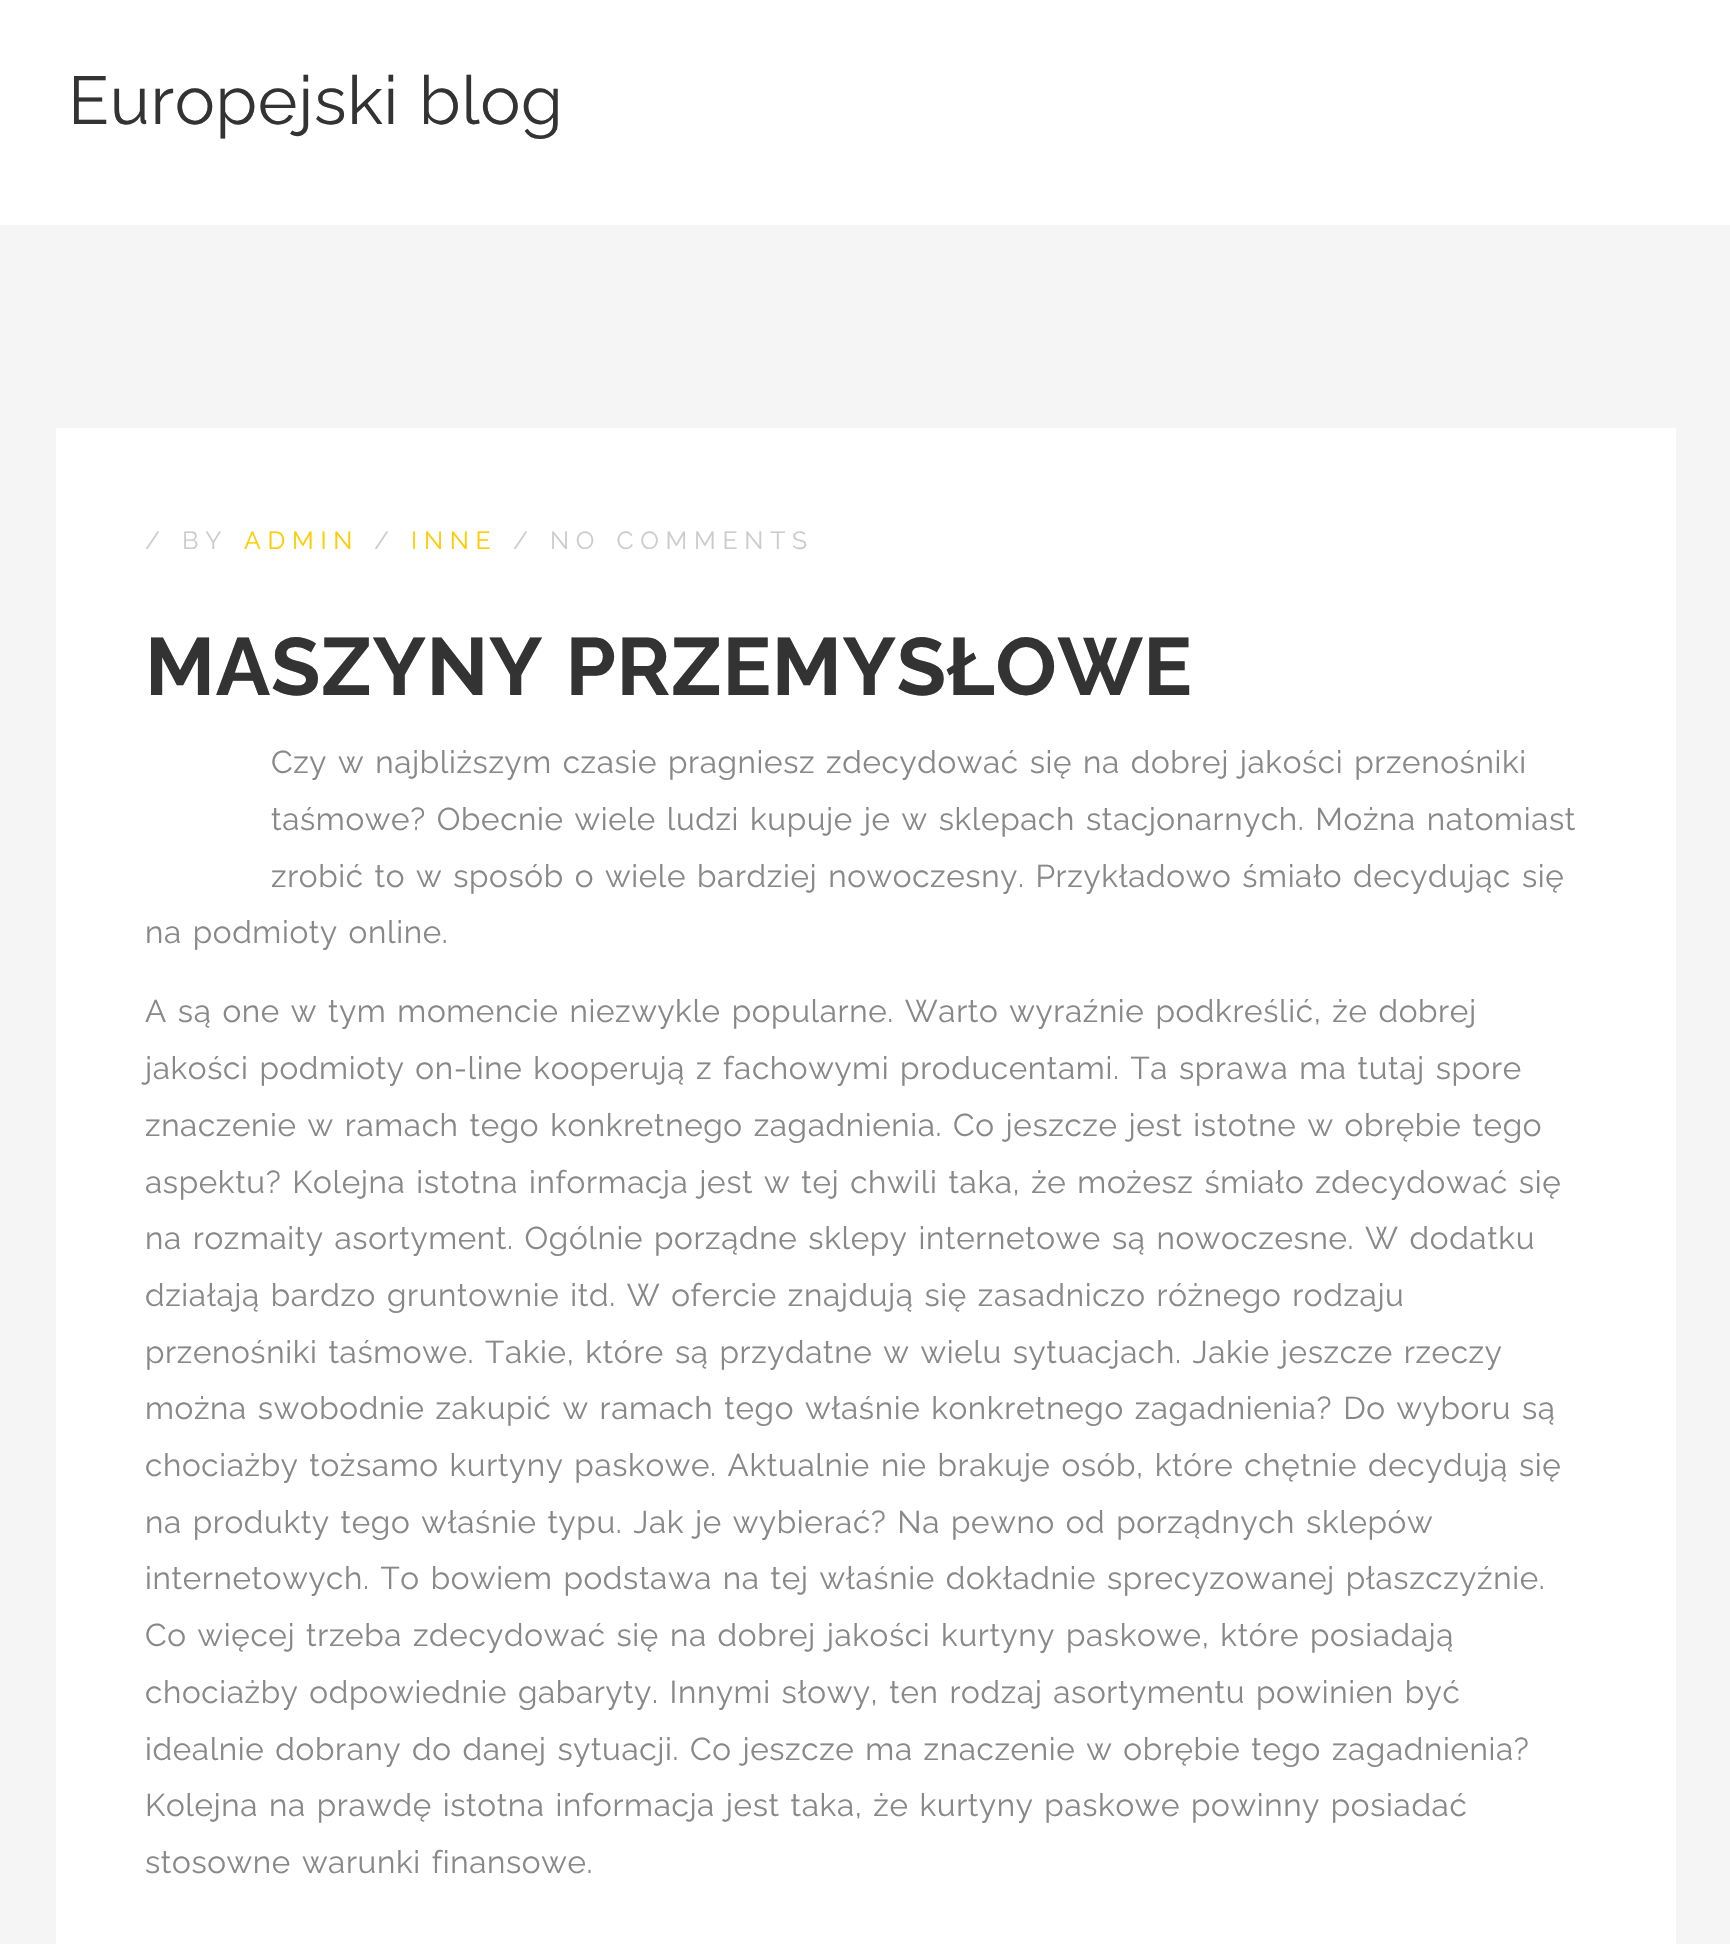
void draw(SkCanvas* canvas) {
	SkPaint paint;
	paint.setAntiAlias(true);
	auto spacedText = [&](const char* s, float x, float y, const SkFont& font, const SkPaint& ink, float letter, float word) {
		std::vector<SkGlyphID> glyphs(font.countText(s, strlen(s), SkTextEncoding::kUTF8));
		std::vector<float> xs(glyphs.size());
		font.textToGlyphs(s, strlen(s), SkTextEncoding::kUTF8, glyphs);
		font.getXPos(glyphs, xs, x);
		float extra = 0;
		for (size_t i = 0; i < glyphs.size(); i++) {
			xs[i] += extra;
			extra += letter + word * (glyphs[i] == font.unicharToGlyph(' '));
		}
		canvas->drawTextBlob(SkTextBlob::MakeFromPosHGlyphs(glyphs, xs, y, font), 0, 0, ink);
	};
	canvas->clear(0xfff5f5f5);
	paint.setColor(0xffffffff);
	canvas->drawRect(SkRect::MakeXYWH(0, 0, 1730, 225), paint);
	SkFont f1(fontMgr->matchFamilyStyle("Raleway", SkFontStyle::Normal()), 67.5);
	f1.setSubpixel(true);
	paint.setColor(0xff333333);
	spacedText("Europejski blog", 68, 124, f1, paint, 0.63, 2.25);
	paint.setColor(0xffffffff);
	canvas->drawRect(SkRect::MakeXYWH(56, 428, 1620, 1516), paint);
	SkFont f2(fontMgr->matchFamilyStyle("Raleway", SkFontStyle::Normal()), 24.75);
	f2.setSubpixel(true);
	paint.setColor(0xffcccccc);
	spacedText("/", 145, 549, f2, paint, 6.75, 0);
	spacedText("BY", 182, 549, f2, paint, 6.75, 0);
	paint.setColor(0xffffcc00);
	spacedText("ADMIN", 244, 549, f2, paint, 6.75, 0);
	paint.setColor(0xffcccccc);
	spacedText("/", 374, 549, f2, paint, 6.75, 0);
	paint.setColor(0xffffcc00);
	spacedText("INNE", 411, 549, f2, paint, 6.75, 0);
	paint.setColor(0xffcccccc);
	spacedText("/", 513, 549, f2, paint, 6.75, 0);
	spacedText("NO COMMENTS", 550, 549, f2, paint, 6.75, 2.25);
	SkFont f3(fontMgr->matchFamilyStyle("Raleway", SkFontStyle::Bold()), 81);
	f3.setSubpixel(true);
	paint.setColor(0xff333333);
	spacedText("MASZYNY PRZEMYSŁOWE", 145, 695, f3, paint, 0.63, 2.25);
	SkFont f4(fontMgr->matchFamilyStyle("Raleway", SkFontStyle::Normal()), 31.5);
	f4.setSubpixel(true);
	paint.setColor(0xff888888);
	spacedText("Czy w najbliższym czasie pragniesz zdecydować się na dobrej jakości przenośniki", 271, 773, f4, paint, 0.63, 2.25);
	spacedText("taśmowe? Obecnie wiele ludzi kupuje je w sklepach stacjonarnych. Można natomiast", 271, 830, f4, paint, 0.63, 2.25);
	spacedText("zrobić to w sposób o wiele bardziej nowoczesny. Przykładowo śmiało decydując się", 271, 887, f4, paint, 0.63, 2.25);
	spacedText("na podmioty online.", 145, 943, f4, paint, 0.63, 2.25);
	spacedText("A są one w tym momencie niezwykle popularne. Warto wyraźnie podkreślić, że dobrej", 145, 1022, f4, paint, 0.63, 2.25);
	spacedText("jakości podmioty on-line kooperują z fachowymi producentami. Ta sprawa ma tutaj spore", 145, 1079, f4, paint, 0.63, 2.25);
	spacedText("znaczenie w ramach tego konkretnego zagadnienia. Co jeszcze jest istotne w obrębie tego", 145, 1136, f4, paint, 0.63, 2.25);
	spacedText("aspektu? Kolejna istotna informacja jest w tej chwili taka, że możesz śmiało zdecydować się", 145, 1193, f4, paint, 0.63, 2.25);
	spacedText("na rozmaity asortyment. Ogólnie porządne sklepy internetowe są nowoczesne. W dodatku", 145, 1249, f4, paint, 0.63, 2.25);
	spacedText("działają bardzo gruntownie itd. W ofercie znajdują się zasadniczo różnego rodzaju", 145, 1306, f4, paint, 0.63, 2.25);
	spacedText("przenośniki taśmowe. Takie, które są przydatne w wielu sytuacjach. Jakie jeszcze rzeczy", 145, 1363, f4, paint, 0.63, 2.25);
	spacedText("można swobodnie zakupić w ramach tego właśnie konkretnego zagadnienia? Do wyboru są", 145, 1419, f4, paint, 0.63, 2.25);
	spacedText("chociażby tożsamo kurtyny paskowe. Aktualnie nie brakuje osób, które chętnie decydują się", 145, 1476, f4, paint, 0.63, 2.25);
	spacedText("na produkty tego właśnie typu. Jak je wybierać? Na pewno od porządnych sklepów", 145, 1533, f4, paint, 0.63, 2.25);
	spacedText("internetowych. To bowiem podstawa na tej właśnie dokładnie sprecyzowanej płaszczyźnie.", 145, 1589, f4, paint, 0.63, 2.25);
	spacedText("Co więcej trzeba zdecydować się na dobrej jakości kurtyny paskowe, które posiadają", 145, 1646, f4, paint, 0.63, 2.25);
	spacedText("chociażby odpowiednie gabaryty. Innymi słowy, ten rodzaj asortymentu powinien być", 145, 1703, f4, paint, 0.63, 2.25);
	spacedText("idealnie dobrany do danej sytuacji. Co jeszcze ma znaczenie w obrębie tego zagadnienia?", 145, 1760, f4, paint, 0.63, 2.25);
	spacedText("Kolejna na prawdę istotna informacja jest taka, że kurtyny paskowe powinny posiadać", 145, 1816, f4, paint, 0.63, 2.25);
	spacedText("stosowne warunki finansowe.", 145, 1873, f4, paint, 0.63, 2.25);
}
